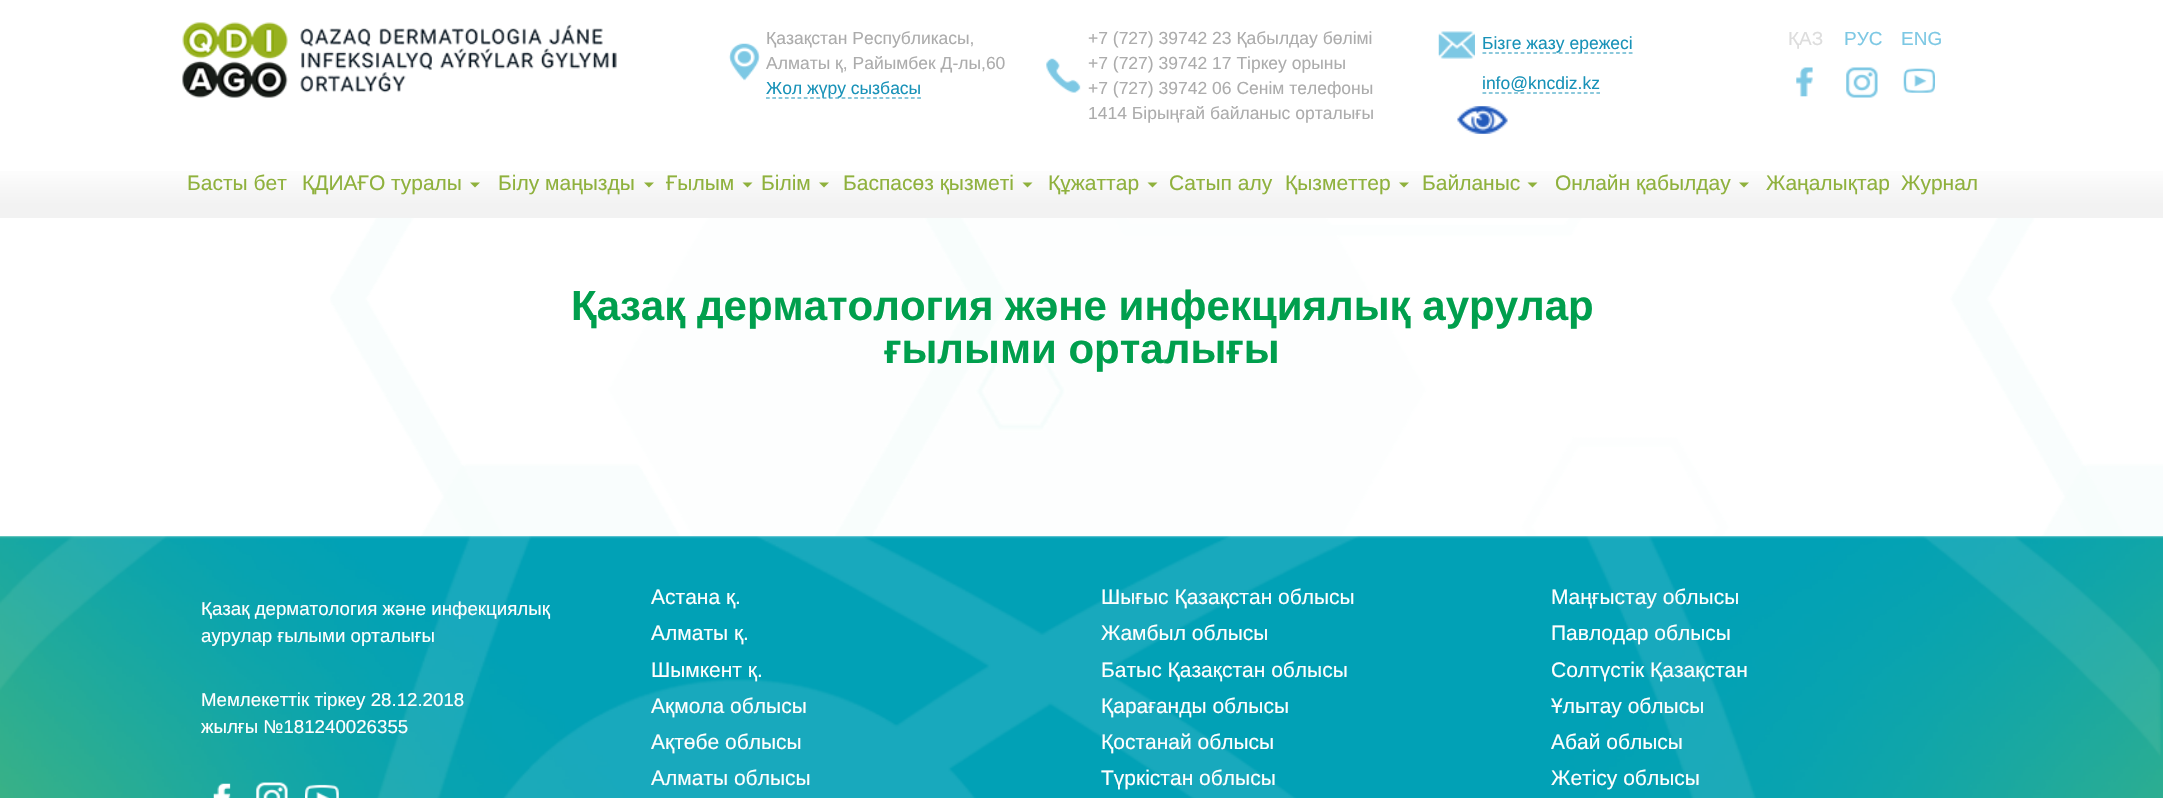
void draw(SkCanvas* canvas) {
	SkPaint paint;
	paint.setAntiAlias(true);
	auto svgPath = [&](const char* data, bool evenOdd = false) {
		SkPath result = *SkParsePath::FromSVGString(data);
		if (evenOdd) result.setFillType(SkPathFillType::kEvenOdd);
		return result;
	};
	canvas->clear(0xffffffff);
	canvas->drawImageRect(SkImages::DeferredFromEncodedData(SkData::MakeFromFileName("img1.png")), SkRect::MakeXYWH(330, 218, 1833, 319), SkSamplingOptions());
	canvas->drawImageRect(SkImages::DeferredFromEncodedData(SkData::MakeFromFileName("img2.png")), SkRect::MakeXYWH(182, 22, 435, 76), SkSamplingOptions());
	canvas->drawImageRect(SkImages::DeferredFromEncodedData(SkData::MakeFromFileName("img3.png")), SkRect::MakeXYWH(728, 43, 32, 38), SkSamplingOptions());
	SkFont f1(fontMgr->matchFamilyStyle("Liberation Sans", SkFontStyle::Normal()), 17.5);
	f1.setSubpixel(true);
	paint.setColor(0xffacacac);
	canvas->drawString("Қазақстан Республикасы,", 766, 44, f1, paint);
	canvas->drawString("Алматы қ, Райымбек Д-лы,60", 766, 69, f1, paint);
	paint.setStroke(true);
	paint.setStrokeWidth(1.2);
	paint.setColor(0xff1892b8);
	paint.setPathEffect(SkDashPathEffect::Make({{3.75f, 2.55f}}, 0));
	canvas->drawPath(svgPath("M766 98H921"), paint);
	paint.setPathEffect(nullptr);
	paint.setStroke(false);
	canvas->drawString("Жол жүру сызбасы", 766, 94, f1, paint);
	canvas->drawImageRect(SkImages::DeferredFromEncodedData(SkData::MakeFromFileName("img4.png")), SkRect::MakeXYWH(1046, 58, 35, 35), SkSamplingOptions());
	paint.setColor(0xffacacac);
	canvas->drawString("+7 (727) 39742 23 Қабылдау бөлімі", 1088, 44, f1, paint);
	canvas->drawString("+7 (727) 39742 17 Тіркеу орыны", 1088, 69, f1, paint);
	canvas->drawString("+7 (727) 39742 06 Сенім телефоны", 1088, 94, f1, paint);
	canvas->drawString("1414 Бірыңғай байланыс орталығы", 1088, 119, f1, paint);
	canvas->drawImageRect(SkImages::DeferredFromEncodedData(SkData::MakeFromFileName("img5.png")), SkRect::MakeXYWH(1438, 31, 37, 28), SkSamplingOptions());
	paint.setStroke(true);
	paint.setColor(0xff1892b8);
	paint.setPathEffect(SkDashPathEffect::Make({{3.75f, 2.61f}}, 0));
	canvas->drawPath(svgPath("M1482.5 53H1632.5"), paint);
	paint.setPathEffect(nullptr);
	paint.setStroke(false);
	canvas->drawString("Бізге жазу ережесі", 1482, 49, f1, paint);
	canvas->drawString("info@kncdiz.kz", 1482, 89, f1, paint);
	paint.setStroke(true);
	paint.setPathEffect(SkDashPathEffect::Make({{3.75f, 2.58f}}, 0));
	canvas->drawPath(svgPath("M1482.5 93H1600"), paint);
	paint.setPathEffect(nullptr);
	canvas->drawImageRect(SkImages::DeferredFromEncodedData(SkData::MakeFromFileName("img6.png")), SkRect::MakeXYWH(1457, 106, 51, 28), SkSamplingOptions());
	SkFont f2(fontMgr->matchFamilyStyle("Liberation Sans", SkFontStyle::Normal()), 19);
	f2.setSubpixel(true);
	paint.setStroke(false);
	paint.setColor(0xffdddddd);
	canvas->drawString("ҚАЗ", 1788, 45, f2, paint);
	paint.setColor(0xff7dc8e4);
	canvas->drawString("РУС", 1844, 45, f2, paint);
	canvas->drawString("ENG", 1901, 45, f2, paint);
	canvas->drawImageRect(SkImages::DeferredFromEncodedData(SkData::MakeFromFileName("img7.png")), SkRect::MakeXYWH(1796, 67, 17, 30), SkSamplingOptions());
	canvas->drawImageRect(SkImages::DeferredFromEncodedData(SkData::MakeFromFileName("img8.png")), SkRect::MakeXYWH(1846, 67, 32, 31), SkSamplingOptions());
	canvas->drawImageRect(SkImages::DeferredFromEncodedData(SkData::MakeFromFileName("img9.png")), SkRect::MakeXYWH(1903, 68, 32, 25), SkSamplingOptions());
	{
		const SkColor colors[] = {0xffffffff, 0xfff2f2f2};
		const float stops[] = {0.2, 0.8};
		const SkPoint ends[] = {{1082, 150}, {1082, 218}};
		paint.setShader(SkGradientShader::MakeLinear(ends, colors, stops, 2, SkTileMode::kClamp));
		paint.setAlpha(255);
	}
	canvas->drawRect(SkRect::MakeXYWH(0, 171, 2163, 47), paint);
	SkFont f3(fontMgr->matchFamilyStyle("Liberation Sans", SkFontStyle::Normal()), 21);
	f3.setSubpixel(true);
	paint.setShader(nullptr);
	paint.setColor(0xff8fb13d);
	canvas->drawString("Басты бет", 187, 190, f3, paint);
	canvas->drawString("ҚДИАҒО туралы", 302, 190, f3, paint);
	canvas->drawPath(svgPath("M470 182.5H480L475 187.5Z"), paint);
	canvas->drawString("Білу маңызды", 498, 190, f3, paint);
	canvas->drawPath(svgPath("M644 182.5H654L649 187.5Z"), paint);
	canvas->drawString("Ғылым", 666, 190, f3, paint);
	canvas->drawPath(svgPath("M742.5 182.5H752.5L747.5 187.5Z"), paint);
	canvas->drawString("Білім", 761, 190, f3, paint);
	canvas->drawPath(svgPath("M819 182.5H829L824 187.5Z"), paint);
	canvas->drawString("Баспасөз қызметі", 843, 190, f3, paint);
	canvas->drawPath(svgPath("M1022.5 182.5H1032.5L1027.5 187.5Z"), paint);
	canvas->drawString("Құжаттар", 1048, 190, f3, paint);
	canvas->drawPath(svgPath("M1147.5 182.5H1157.5L1152.5 187.5Z"), paint);
	canvas->drawString("Сатып алу", 1169, 190, f3, paint);
	canvas->drawString("Қызметтер", 1285, 190, f3, paint);
	canvas->drawPath(svgPath("M1399 182.5H1409L1404 187.5Z"), paint);
	canvas->drawString("Байланыс", 1422, 190, f3, paint);
	canvas->drawPath(svgPath("M1527.5 182.5H1537.5L1532.5 187.5Z"), paint);
	canvas->drawString("Онлайн қабылдау", 1555, 190, f3, paint);
	canvas->drawPath(svgPath("M1739 182.5H1749L1744 187.5Z"), paint);
	canvas->drawString("Жаңалықтар", 1766, 190, f3, paint);
	canvas->drawString("Журнал", 1901, 190, f3, paint);
	SkFont f4(fontMgr->matchFamilyStyle("Liberation Sans", SkFontStyle::Bold()), 42);
	f4.setSubpixel(true);
	paint.setColor(0xff009f4d);
	canvas->drawString("Қазақ дерматология және инфекциялық аурулар", 571, 320, f4, paint);
	canvas->drawString("ғылыми орталығы", 884, 363, f4, paint);
	canvas->drawImageRect(SkImages::DeferredFromEncodedData(SkData::MakeFromFileName("img10.png")), SkRect::MakeXYWH(0, 536, 2163, 262), SkSamplingOptions());
	SkFont f5(fontMgr->matchFamilyStyle("Liberation Sans", SkFontStyle::Normal()), 18.7);
	f5.setSubpixel(true);
	paint.setColor(0xffffffff);
	canvas->drawString("Қазақ дерматология және инфекциялық", 201, 615, f5, paint);
	canvas->drawString("аурулар ғылыми орталығы", 201, 642, f5, paint);
	canvas->drawString("Мемлекеттік тіркеу 28.12.2018", 201, 706, f5, paint);
	canvas->drawString("жылғы №181240026355", 201, 733, f5, paint);
	canvas->drawImageRect(SkImages::DeferredFromEncodedData(SkData::MakeFromFileName("img11.png")), SkRect::MakeXYWH(213, 783, 18, 15), SkSamplingOptions());
	canvas->drawImageRect(SkImages::DeferredFromEncodedData(SkData::MakeFromFileName("img12.png")), SkRect::MakeXYWH(256, 782, 32, 16), SkSamplingOptions());
	canvas->drawImageRect(SkImages::DeferredFromEncodedData(SkData::MakeFromFileName("img13.png")), SkRect::MakeXYWH(305, 784, 34, 14), SkSamplingOptions());
	canvas->drawString("Астана қ.", 651, 604, f3, paint);
	canvas->drawString("Алматы қ.", 651, 640, f3, paint);
	canvas->drawString("Шымкент қ.", 651, 677, f3, paint);
	canvas->drawString("Ақмола облысы", 651, 713, f3, paint);
	canvas->drawString("Ақтөбе облысы", 651, 749, f3, paint);
	canvas->drawString("Алматы облысы", 651, 785, f3, paint);
	canvas->drawString("Шығыс Қазақстан облысы", 1101, 604, f3, paint);
	canvas->drawString("Жамбыл облысы", 1101, 640, f3, paint);
	canvas->drawString("Батыс Қазақстан облысы", 1101, 677, f3, paint);
	canvas->drawString("Қарағанды облысы", 1101, 713, f3, paint);
	canvas->drawString("Қостанай облысы", 1101, 749, f3, paint);
	canvas->drawString("Түркістан облысы", 1101, 785, f3, paint);
	canvas->drawString("Маңғыстау облысы", 1551, 604, f3, paint);
	canvas->drawString("Павлодар облысы", 1551, 640, f3, paint);
	canvas->drawString("Солтүстік Қазақстан", 1551, 677, f3, paint);
	canvas->drawString("Ұлытау облысы", 1551, 713, f3, paint);
	canvas->drawString("Абай облысы", 1551, 749, f3, paint);
	canvas->drawString("Жетісу облысы", 1551, 785, f3, paint);
}
